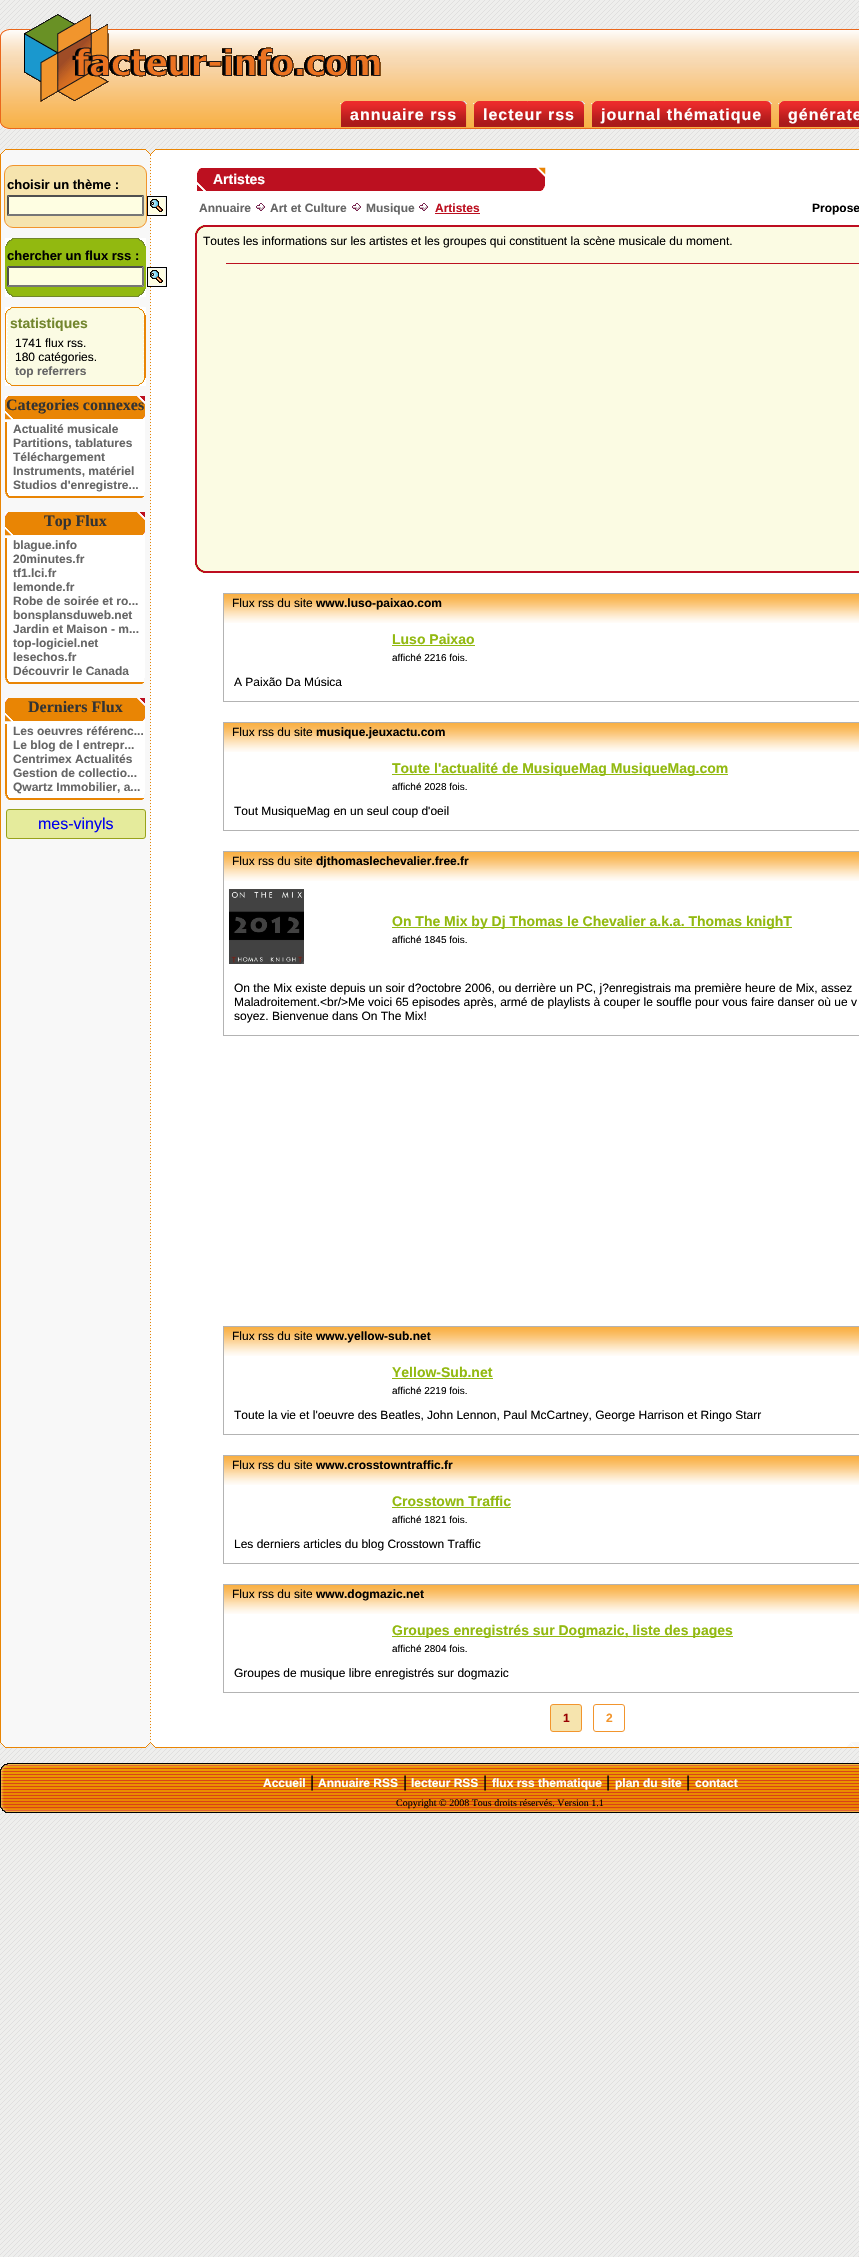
void draw(SkCanvas* canvas) {
	SkPaint paint;
	paint.setAntiAlias(true);
	auto spacedText = [&](const char* s, float x, float y, const SkFont& font, const SkPaint& ink, float letter, float word) {
		std::vector<SkGlyphID> glyphs(font.countText(s, strlen(s), SkTextEncoding::kUTF8));
		std::vector<float> xs(glyphs.size());
		font.textToGlyphs(s, strlen(s), SkTextEncoding::kUTF8, glyphs);
		font.getXPos(glyphs, xs, x);
		float extra = 0;
		for (size_t i = 0; i < glyphs.size(); i++) {
			xs[i] += extra;
			extra += letter + word * (glyphs[i] == font.unicharToGlyph(' '));
		}
		canvas->drawTextBlob(SkTextBlob::MakeFromPosHGlyphs(glyphs, xs, y, font), 0, 0, ink);
	};
	auto svgPath = [&](const char* data, bool evenOdd = false) {
		SkPath result = *SkParsePath::FromSVGString(data);
		if (evenOdd) result.setFillType(SkPathFillType::kEvenOdd);
		return result;
	};
	canvas->clear(0xffffffff);
	canvas->drawImageRect(SkImages::DeferredFromEncodedData(SkData::MakeFromFileName("img1.png")), SkRect::MakeXYWH(0, 0, 859, 2257), SkSamplingOptions());
	canvas->drawImageRect(SkImages::DeferredFromEncodedData(SkData::MakeFromFileName("img2.png")), SkRect::MakeXYWH(0, 29, 859, 100), SkSamplingOptions());
	canvas->drawImageRect(SkImages::DeferredFromEncodedData(SkData::MakeFromFileName("img4.png")), SkRect::MakeXYWH(340, 101, 22, 26), SkSamplingOptions());
	canvas->drawImageRect(SkImages::DeferredFromEncodedData(SkData::MakeFromFileName("img5.png")), SkRect::MakeXYWH(362, 101, 105, 26), SkSamplingOptions());
	canvas->drawImageRect(SkImages::DeferredFromEncodedData(SkData::MakeFromFileName("img3.png")), SkRect::MakeXYWH(24, 14, 357, 88), SkSamplingOptions());
	SkFont f1(fontMgr->matchFamilyStyle("Liberation Sans", SkFontStyle::Bold()), 16);
	f1.setSubpixel(true);
	paint.setColor(0xffffffff);
	spacedText("annuaire rss", 350, 120, f1, paint, 1, 0);
	canvas->drawImageRect(SkImages::DeferredFromEncodedData(SkData::MakeFromFileName("img4.png")), SkRect::MakeXYWH(473, 101, 22, 26), SkSamplingOptions());
	canvas->drawImageRect(SkImages::DeferredFromEncodedData(SkData::MakeFromFileName("img6.png")), SkRect::MakeXYWH(495, 101, 90, 26), SkSamplingOptions());
	spacedText("lecteur rss", 483, 120, f1, paint, 1, 0);
	canvas->drawImageRect(SkImages::DeferredFromEncodedData(SkData::MakeFromFileName("img4.png")), SkRect::MakeXYWH(591, 101, 22, 26), SkSamplingOptions());
	canvas->drawImageRect(SkImages::DeferredFromEncodedData(SkData::MakeFromFileName("img7.png")), SkRect::MakeXYWH(613, 101, 159, 26), SkSamplingOptions());
	spacedText("journal thématique", 601, 120, f1, paint, 1, 0);
	canvas->drawImageRect(SkImages::DeferredFromEncodedData(SkData::MakeFromFileName("img4.png")), SkRect::MakeXYWH(778, 101, 22, 26), SkSamplingOptions());
	canvas->drawImageRect(SkImages::DeferredFromEncodedData(SkData::MakeFromFileName("img8.png")), SkRect::MakeXYWH(800, 101, 59, 26), SkSamplingOptions());
	spacedText("générate", 788, 120, f1, paint, 1, 0);
	canvas->drawImageRect(SkImages::DeferredFromEncodedData(SkData::MakeFromFileName("img9.png")), SkRect::MakeXYWH(0, 149, 859, 6), SkSamplingOptions());
	canvas->drawImageRect(SkImages::DeferredFromEncodedData(SkData::MakeFromFileName("img10.png")), SkRect::MakeXYWH(0, 155, 859, 1587), SkSamplingOptions());
	paint.setColor(0xfff6e4ae);
	canvas->drawRoundRect(SkRect::MakeXYWH(4.5, 165.5, 142, 62), 8.5, 8.5, paint);
	paint.setStroke(true);
	paint.setStrokeWidth(1);
	paint.setColor(0xfff1942d);
	canvas->drawRoundRect(SkRect::MakeXYWH(4.5, 165.5, 142, 62), 8.5, 8.5, paint);
	SkFont f2(fontMgr->matchFamilyStyle("Liberation Sans", SkFontStyle::Bold()), 13);
	f2.setSubpixel(true);
	paint.setStroke(false);
	paint.setColor(0xff000000);
	canvas->drawString("choisir un thème :", 7, 189, f2, paint);
	paint.setColor(0xfffefee2);
	canvas->drawRect(SkRect::MakeXYWH(7, 195, 137, 21), paint);
	paint.setColor(0xff4f4f4f);
	canvas->drawPath(svgPath("M7 195H144L142 197H9Z"), paint);
	paint.setColor(0xff767676);
	canvas->drawPath(svgPath("M144 195V216L142 214V197Z"), paint);
	canvas->drawPath(svgPath("M144 216H7L9 214H142Z"), paint);
	paint.setColor(0xff4f4f4f);
	canvas->drawPath(svgPath("M7 216V195L9 197V214Z"), paint);
	paint.setColor(0xfffefee2);
	canvas->drawRect(SkRect::MakeXYWH(149, 198, 16, 16), paint);
	canvas->drawImageRect(SkImages::DeferredFromEncodedData(SkData::MakeFromFileName("img11.png")), SkRect::MakeXYWH(147, 196, 20, 20), SkSamplingOptions());
	paint.setColor(0xff92b910);
	canvas->drawRect(SkRect::MakeXYWH(5, 246, 141, 43), paint);
	paint.setColor(0xffffffff);
	canvas->drawRect(SkRect::MakeXYWH(5, 238, 141, 8), paint);
	canvas->drawImageRect(SkImages::DeferredFromEncodedData(SkData::MakeFromFileName("img12.png")), SkRect::MakeXYWH(6, 238, 139, 8), SkSamplingOptions());
	paint.setColor(0xff000000);
	canvas->drawString("chercher un flux rss :", 7, 260, f2, paint);
	paint.setColor(0xfffefee2);
	canvas->drawRect(SkRect::MakeXYWH(7, 266, 137, 21), paint);
	paint.setColor(0xff4f4f4f);
	canvas->drawPath(svgPath("M7 266H144L142 268H9Z"), paint);
	paint.setColor(0xff767676);
	canvas->drawPath(svgPath("M144 266V287L142 285V268Z"), paint);
	canvas->drawPath(svgPath("M144 287H7L9 285H142Z"), paint);
	paint.setColor(0xff4f4f4f);
	canvas->drawPath(svgPath("M7 287V266L9 268V285Z"), paint);
	paint.setColor(0xfffefee2);
	canvas->drawRect(SkRect::MakeXYWH(149, 269, 16, 16), paint);
	canvas->drawImageRect(SkImages::DeferredFromEncodedData(SkData::MakeFromFileName("img11.png")), SkRect::MakeXYWH(147, 267, 20, 20), SkSamplingOptions());
	paint.setColor(0xffffffff);
	canvas->drawRect(SkRect::MakeXYWH(5, 289, 141, 8), paint);
	canvas->drawImageRect(SkImages::DeferredFromEncodedData(SkData::MakeFromFileName("img13.png")), SkRect::MakeXYWH(6, 289, 139, 8), SkSamplingOptions());
	canvas->drawImageRect(SkImages::DeferredFromEncodedData(SkData::MakeFromFileName("img14.png")), SkRect::MakeXYWH(5, 315, 141, 63), SkSamplingOptions());
	canvas->drawRect(SkRect::MakeXYWH(5, 307, 141, 8), paint);
	canvas->drawImageRect(SkImages::DeferredFromEncodedData(SkData::MakeFromFileName("img15.png")), SkRect::MakeXYWH(5, 307, 140, 8), SkSamplingOptions());
	SkFont f3(fontMgr->matchFamilyStyle("Liberation Sans", SkFontStyle::Bold()), 14);
	f3.setSubpixel(true);
	paint.setColor(0xff72862d);
	canvas->drawString("statistiques", 10, 328, f3, paint);
	SkFont f4(fontMgr->matchFamilyStyle("Liberation Sans", SkFontStyle::Normal()), 12);
	f4.setSubpixel(true);
	paint.setColor(0xff000000);
	canvas->drawString("1741 flux rss.", 15, 347, f4, paint);
	canvas->drawString("180 catégories.", 15, 361, f4, paint);
	SkFont f5(fontMgr->matchFamilyStyle("Liberation Sans", SkFontStyle::Bold()), 12);
	f5.setSubpixel(true);
	paint.setColor(0xff666666);
	canvas->drawString("top referrers", 15, 375, f5, paint);
	paint.setColor(0xffffffff);
	canvas->drawRect(SkRect::MakeXYWH(5, 378, 141, 8), paint);
	canvas->drawImageRect(SkImages::DeferredFromEncodedData(SkData::MakeFromFileName("img16.png")), SkRect::MakeXYWH(5, 378, 140, 8), SkSamplingOptions());
	canvas->drawImageRect(SkImages::DeferredFromEncodedData(SkData::MakeFromFileName("img17.png")), SkRect::MakeXYWH(5, 396, 140, 26), SkSamplingOptions());
	SkFont f6(fontMgr->matchFamilyStyle("Liberation Serif", SkFontStyle::Bold()), 16);
	f6.setSubpixel(true);
	paint.setColor(0xff333333);
	canvas->drawString("Categories connexes", 6, 410, f6, paint);
	canvas->drawImageRect(SkImages::DeferredFromEncodedData(SkData::MakeFromFileName("img18.png")), SkRect::MakeXYWH(5, 422, 140, 70), SkSamplingOptions());
	paint.setColor(0xff666666);
	canvas->drawString("Actualité musicale", 13, 433, f5, paint);
	canvas->drawString("Partitions, tablatures", 13, 447, f5, paint);
	canvas->drawString("Téléchargement", 13, 461, f5, paint);
	canvas->drawString("Instruments, matériel", 13, 475, f5, paint);
	canvas->drawString("Studios d'enregistre...", 13, 489, f5, paint);
	canvas->drawImageRect(SkImages::DeferredFromEncodedData(SkData::MakeFromFileName("img19.png")), SkRect::MakeXYWH(5, 492, 139, 7), SkSamplingOptions());
	canvas->drawImageRect(SkImages::DeferredFromEncodedData(SkData::MakeFromFileName("img17.png")), SkRect::MakeXYWH(5, 512, 140, 26), SkSamplingOptions());
	paint.setColor(0xff333333);
	canvas->drawString("Top Flux", 44, 526, f6, paint);
	canvas->drawImageRect(SkImages::DeferredFromEncodedData(SkData::MakeFromFileName("img20.png")), SkRect::MakeXYWH(5, 538, 140, 140), SkSamplingOptions());
	paint.setColor(0xff666666);
	canvas->drawString("blague.info", 13, 549, f5, paint);
	canvas->drawString("20minutes.fr", 13, 563, f5, paint);
	canvas->drawString("tf1.lci.fr", 13, 577, f5, paint);
	canvas->drawString("lemonde.fr", 13, 591, f5, paint);
	canvas->drawString("Robe de soirée et ro...", 13, 605, f5, paint);
	canvas->drawString("bonsplansduweb.net", 13, 619, f5, paint);
	canvas->drawString("Jardin et Maison - m...", 13, 633, f5, paint);
	canvas->drawString("top-logiciel.net", 13, 647, f5, paint);
	canvas->drawString("lesechos.fr", 13, 661, f5, paint);
	canvas->drawString("Découvrir le Canada", 13, 675, f5, paint);
	canvas->drawImageRect(SkImages::DeferredFromEncodedData(SkData::MakeFromFileName("img19.png")), SkRect::MakeXYWH(5, 678, 139, 7), SkSamplingOptions());
	canvas->drawImageRect(SkImages::DeferredFromEncodedData(SkData::MakeFromFileName("img17.png")), SkRect::MakeXYWH(5, 698, 140, 26), SkSamplingOptions());
	paint.setColor(0xff333333);
	canvas->drawString("Derniers Flux", 28, 712, f6, paint);
	canvas->drawImageRect(SkImages::DeferredFromEncodedData(SkData::MakeFromFileName("img18.png")), SkRect::MakeXYWH(5, 724, 140, 70), SkSamplingOptions());
	paint.setColor(0xff666666);
	canvas->drawString("Les oeuvres référenc...", 13, 735, f5, paint);
	canvas->drawString("Le blog de l entrepr...", 13, 749, f5, paint);
	canvas->drawString("Centrimex Actualités", 13, 763, f5, paint);
	canvas->drawString("Gestion de collectio...", 13, 777, f5, paint);
	canvas->drawString("Qwartz Immobilier, a...", 13, 791, f5, paint);
	canvas->drawImageRect(SkImages::DeferredFromEncodedData(SkData::MakeFromFileName("img19.png")), SkRect::MakeXYWH(5, 794, 139, 7), SkSamplingOptions());
	paint.setColor(0xffe5eb9c);
	canvas->drawRoundRect(SkRect::MakeXYWH(6.5, 809.5, 139, 29), 2.5, 2.5, paint);
	paint.setStroke(true);
	paint.setColor(0xff98a21b);
	canvas->drawRoundRect(SkRect::MakeXYWH(6.5, 809.5, 139, 29), 2.5, 2.5, paint);
	SkFont f7(fontMgr->matchFamilyStyle("Liberation Sans", SkFontStyle::Normal()), 16);
	f7.setSubpixel(true);
	paint.setStroke(false);
	paint.setColor(0xff0000ee);
	canvas->drawString("mes-vinyls", 38, 829, f7, paint);
	canvas->drawImageRect(SkImages::DeferredFromEncodedData(SkData::MakeFromFileName("img21.png")), SkRect::MakeXYWH(197, 167, 349, 24), SkSamplingOptions());
	paint.setColor(0xffffffff);
	canvas->drawString("Artistes", 213, 184, f3, paint);
	paint.setColor(0xff666666);
	canvas->drawString("Annuaire", 199, 212, f5, paint);
	canvas->drawImageRect(SkImages::DeferredFromEncodedData(SkData::MakeFromFileName("img22.png")), SkRect::MakeXYWH(256, 203, 9, 8), SkSamplingOptions());
	canvas->drawString("Art et Culture", 270, 212, f5, paint);
	canvas->drawImageRect(SkImages::DeferredFromEncodedData(SkData::MakeFromFileName("img22.png")), SkRect::MakeXYWH(352, 203, 9, 8), SkSamplingOptions());
	canvas->drawString("Musique", 366, 212, f5, paint);
	canvas->drawImageRect(SkImages::DeferredFromEncodedData(SkData::MakeFromFileName("img22.png")), SkRect::MakeXYWH(419, 203, 9, 8), SkSamplingOptions());
	paint.setColor(0xffbc1020);
	canvas->drawString("Artistes", 435, 212, f5, paint);
	canvas->drawRect(SkRect::MakeXYWH(435, 213, 45, 1), paint);
	paint.setColor(0xff000000);
	canvas->drawString("Propose", 812, 212, f5, paint);
	canvas->drawImageRect(SkImages::DeferredFromEncodedData(SkData::MakeFromFileName("img23.png")), SkRect::MakeXYWH(195, 225, 664, 9), SkSamplingOptions());
	canvas->drawImageRect(SkImages::DeferredFromEncodedData(SkData::MakeFromFileName("img24.png")), SkRect::MakeXYWH(195, 234, 664, 330), SkSamplingOptions());
	canvas->drawString("Toutes les informations sur les artistes et les groupes qui constituent la scène musicale du moment.", 203, 245, f4, paint);
	paint.setColor(0xffbc1020);
	canvas->drawRect(SkRect::MakeXYWH(226, 263, 633, 1), paint);
	canvas->drawImageRect(SkImages::DeferredFromEncodedData(SkData::MakeFromFileName("img25.png")), SkRect::MakeXYWH(195, 564, 664, 9), SkSamplingOptions());
	paint.setStroke(true);
	paint.setColor(0xffb3b3b3);
	canvas->drawRect(SkRect::MakeXYWH(223.5, 593.5, 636, 108), paint);
	canvas->drawImageRect(SkImages::DeferredFromEncodedData(SkData::MakeFromFileName("img26.png")), SkRect::MakeXYWH(224, 594, 635, 29), SkSamplingOptions());
	paint.setStroke(false);
	paint.setColor(0xff000000);
	canvas->drawString("Flux rss du site", 232, 607, f4, paint);
	canvas->drawString("www.luso-paixao.com", 316, 607, f5, paint);
	paint.setColor(0xff92b910);
	canvas->drawString("Luso Paixao", 392, 644, f3, paint);
	canvas->drawRect(SkRect::MakeXYWH(392, 645, 83, 1), paint);
	SkFont f8(fontMgr->matchFamilyStyle("Liberation Sans", SkFontStyle::Normal()), 10);
	f8.setSubpixel(true);
	paint.setColor(0xff000000);
	canvas->drawString("affiché 2216 fois.", 392, 661, f8, paint);
	canvas->drawString("A Paixão Da Música", 234, 686, f4, paint);
	paint.setStroke(true);
	paint.setColor(0xffb3b3b3);
	canvas->drawRect(SkRect::MakeXYWH(223.5, 722.5, 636, 108), paint);
	canvas->drawImageRect(SkImages::DeferredFromEncodedData(SkData::MakeFromFileName("img26.png")), SkRect::MakeXYWH(224, 723, 635, 29), SkSamplingOptions());
	paint.setStroke(false);
	paint.setColor(0xff000000);
	canvas->drawString("Flux rss du site", 232, 736, f4, paint);
	canvas->drawString("musique.jeuxactu.com", 316, 736, f5, paint);
	paint.setColor(0xff92b910);
	canvas->drawRect(SkRect::MakeXYWH(392, 774, 336, 1), paint);
	canvas->drawString("Toute l'actualité de MusiqueMag MusiqueMag.com", 392, 773, f3, paint);
	paint.setColor(0xff000000);
	canvas->drawString("affiché 2028 fois.", 392, 790, f8, paint);
	canvas->drawString("Tout MusiqueMag en un seul coup d'oeil", 234, 815, f4, paint);
	paint.setStroke(true);
	paint.setColor(0xffb3b3b3);
	canvas->drawRect(SkRect::MakeXYWH(223.5, 851.5, 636, 184), paint);
	canvas->drawImageRect(SkImages::DeferredFromEncodedData(SkData::MakeFromFileName("img26.png")), SkRect::MakeXYWH(224, 852, 635, 29), SkSamplingOptions());
	paint.setStroke(false);
	paint.setColor(0xff000000);
	canvas->drawString("Flux rss du site", 232, 865, f4, paint);
	canvas->drawString("djthomaslechevalier.free.fr", 316, 865, f5, paint);
	canvas->drawImageRect(SkImages::DeferredFromEncodedData(SkData::MakeFromFileName("img27.png")), SkRect::MakeXYWH(229, 889, 75, 75), SkSamplingOptions());
	paint.setColor(0xff92b910);
	canvas->drawRect(SkRect::MakeXYWH(392, 927, 400, 1), paint);
	canvas->drawString("On The Mix by Dj Thomas le Chevalier a.k.a. Thomas knighT", 392, 926, f3, paint);
	paint.setColor(0xff000000);
	canvas->drawString("affiché 1845 fois.", 392, 943, f8, paint);
	canvas->drawString("On the Mix existe depuis un soir d?octobre 2006, ou derrière un PC, j?enregistrais ma première heure de Mix, assez", 234, 992, f4, paint);
	canvas->drawString("Maladroitement.<br/>Me voici 65 episodes après, armé de playlists à couper le souffle pour vous faire danser où ue v", 234, 1006, f4, paint);
	canvas->drawString("soyez. Bienvenue dans On The Mix!", 234, 1020, f4, paint);
	paint.setStroke(true);
	paint.setColor(0xffb3b3b3);
	canvas->drawRect(SkRect::MakeXYWH(223.5, 1326.5, 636, 108), paint);
	canvas->drawImageRect(SkImages::DeferredFromEncodedData(SkData::MakeFromFileName("img26.png")), SkRect::MakeXYWH(224, 1327, 635, 29), SkSamplingOptions());
	paint.setStroke(false);
	paint.setColor(0xff000000);
	canvas->drawString("Flux rss du site", 232, 1340, f4, paint);
	canvas->drawString("www.yellow-sub.net", 316, 1340, f5, paint);
	paint.setColor(0xff92b910);
	canvas->drawString("Yellow-Sub.net", 392, 1377, f3, paint);
	canvas->drawRect(SkRect::MakeXYWH(392, 1378, 101, 1), paint);
	paint.setColor(0xff000000);
	canvas->drawString("affiché 2219 fois.", 392, 1394, f8, paint);
	canvas->drawString("Toute la vie et l'oeuvre des Beatles, John Lennon, Paul McCartney, George Harrison et Ringo Starr", 234, 1419, f4, paint);
	paint.setStroke(true);
	paint.setColor(0xffb3b3b3);
	canvas->drawRect(SkRect::MakeXYWH(223.5, 1455.5, 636, 108), paint);
	canvas->drawImageRect(SkImages::DeferredFromEncodedData(SkData::MakeFromFileName("img26.png")), SkRect::MakeXYWH(224, 1456, 635, 29), SkSamplingOptions());
	paint.setStroke(false);
	paint.setColor(0xff000000);
	canvas->drawString("Flux rss du site", 232, 1469, f4, paint);
	canvas->drawString("www.crosstowntraffic.fr", 316, 1469, f5, paint);
	paint.setColor(0xff92b910);
	canvas->drawString("Crosstown Traffic", 392, 1506, f3, paint);
	canvas->drawRect(SkRect::MakeXYWH(392, 1507, 119, 1), paint);
	paint.setColor(0xff000000);
	canvas->drawString("affiché 1821 fois.", 392, 1523, f8, paint);
	canvas->drawString("Les derniers articles du blog Crosstown Traffic", 234, 1548, f4, paint);
	paint.setStroke(true);
	paint.setColor(0xffb3b3b3);
	canvas->drawRect(SkRect::MakeXYWH(223.5, 1584.5, 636, 108), paint);
	canvas->drawImageRect(SkImages::DeferredFromEncodedData(SkData::MakeFromFileName("img26.png")), SkRect::MakeXYWH(224, 1585, 635, 29), SkSamplingOptions());
	paint.setStroke(false);
	paint.setColor(0xff000000);
	canvas->drawString("Flux rss du site", 232, 1598, f4, paint);
	canvas->drawString("www.dogmazic.net", 316, 1598, f5, paint);
	paint.setColor(0xff92b910);
	canvas->drawRect(SkRect::MakeXYWH(392, 1636, 341, 1), paint);
	canvas->drawString("Groupes enregistrés sur Dogmazic, liste des pages", 392, 1635, f3, paint);
	paint.setColor(0xff000000);
	canvas->drawString("affiché 2804 fois.", 392, 1652, f8, paint);
	canvas->drawString("Groupes de musique libre enregistrés sur dogmazic", 234, 1677, f4, paint);
	paint.setColor(0xfff6e4ae);
	canvas->drawRoundRect(SkRect::MakeXYWH(550.5, 1704.5, 31, 27), 2.5, 2.5, paint);
	paint.setStroke(true);
	paint.setColor(0xfff2952d);
	canvas->drawRoundRect(SkRect::MakeXYWH(550.5, 1704.5, 31, 27), 2.5, 2.5, paint);
	paint.setStroke(false);
	paint.setColor(0xff990000);
	canvas->drawString("1", 563, 1722, f5, paint);
	paint.setStroke(true);
	paint.setColor(0xfff2952d);
	canvas->drawRoundRect(SkRect::MakeXYWH(593.5, 1704.5, 31, 27), 2.5, 2.5, paint);
	paint.setStroke(false);
	canvas->drawString("2", 606, 1722, f5, paint);
	canvas->drawImageRect(SkImages::DeferredFromEncodedData(SkData::MakeFromFileName("img28.png")), SkRect::MakeXYWH(0, 1742, 859, 6), SkSamplingOptions());
	canvas->drawImageRect(SkImages::DeferredFromEncodedData(SkData::MakeFromFileName("img29.png")), SkRect::MakeXYWH(0, 1763, 859, 50), SkSamplingOptions());
	paint.setColor(0xffffffff);
	canvas->drawString("Accueil", 263, 1787, f5, paint);
	paint.setColor(0xff000000);
	canvas->drawString("|", 310, 1787, f7, paint);
	paint.setColor(0xffffffff);
	canvas->drawString("Annuaire RSS", 318, 1787, f5, paint);
	paint.setColor(0xff000000);
	canvas->drawString("|", 403, 1787, f7, paint);
	paint.setColor(0xffffffff);
	canvas->drawString("lecteur RSS", 411, 1787, f5, paint);
	paint.setColor(0xff000000);
	canvas->drawString("|", 483, 1787, f7, paint);
	paint.setColor(0xffffffff);
	canvas->drawString("flux rss thematique", 492, 1787, f5, paint);
	paint.setColor(0xff000000);
	canvas->drawString("|", 606, 1787, f7, paint);
	paint.setColor(0xffffffff);
	canvas->drawString("plan du site", 615, 1787, f5, paint);
	paint.setColor(0xff000000);
	canvas->drawString("|", 686, 1787, f7, paint);
	paint.setColor(0xffffffff);
	canvas->drawString("contact", 695, 1787, f5, paint);
	SkFont f9(fontMgr->matchFamilyStyle("Liberation Serif", SkFontStyle::Normal()), 10);
	f9.setSubpixel(true);
	paint.setColor(0xff000000);
	canvas->drawString("Copyright © 2008 Tous droits réservés. Version 1.1", 396, 1806, f9, paint);
}
